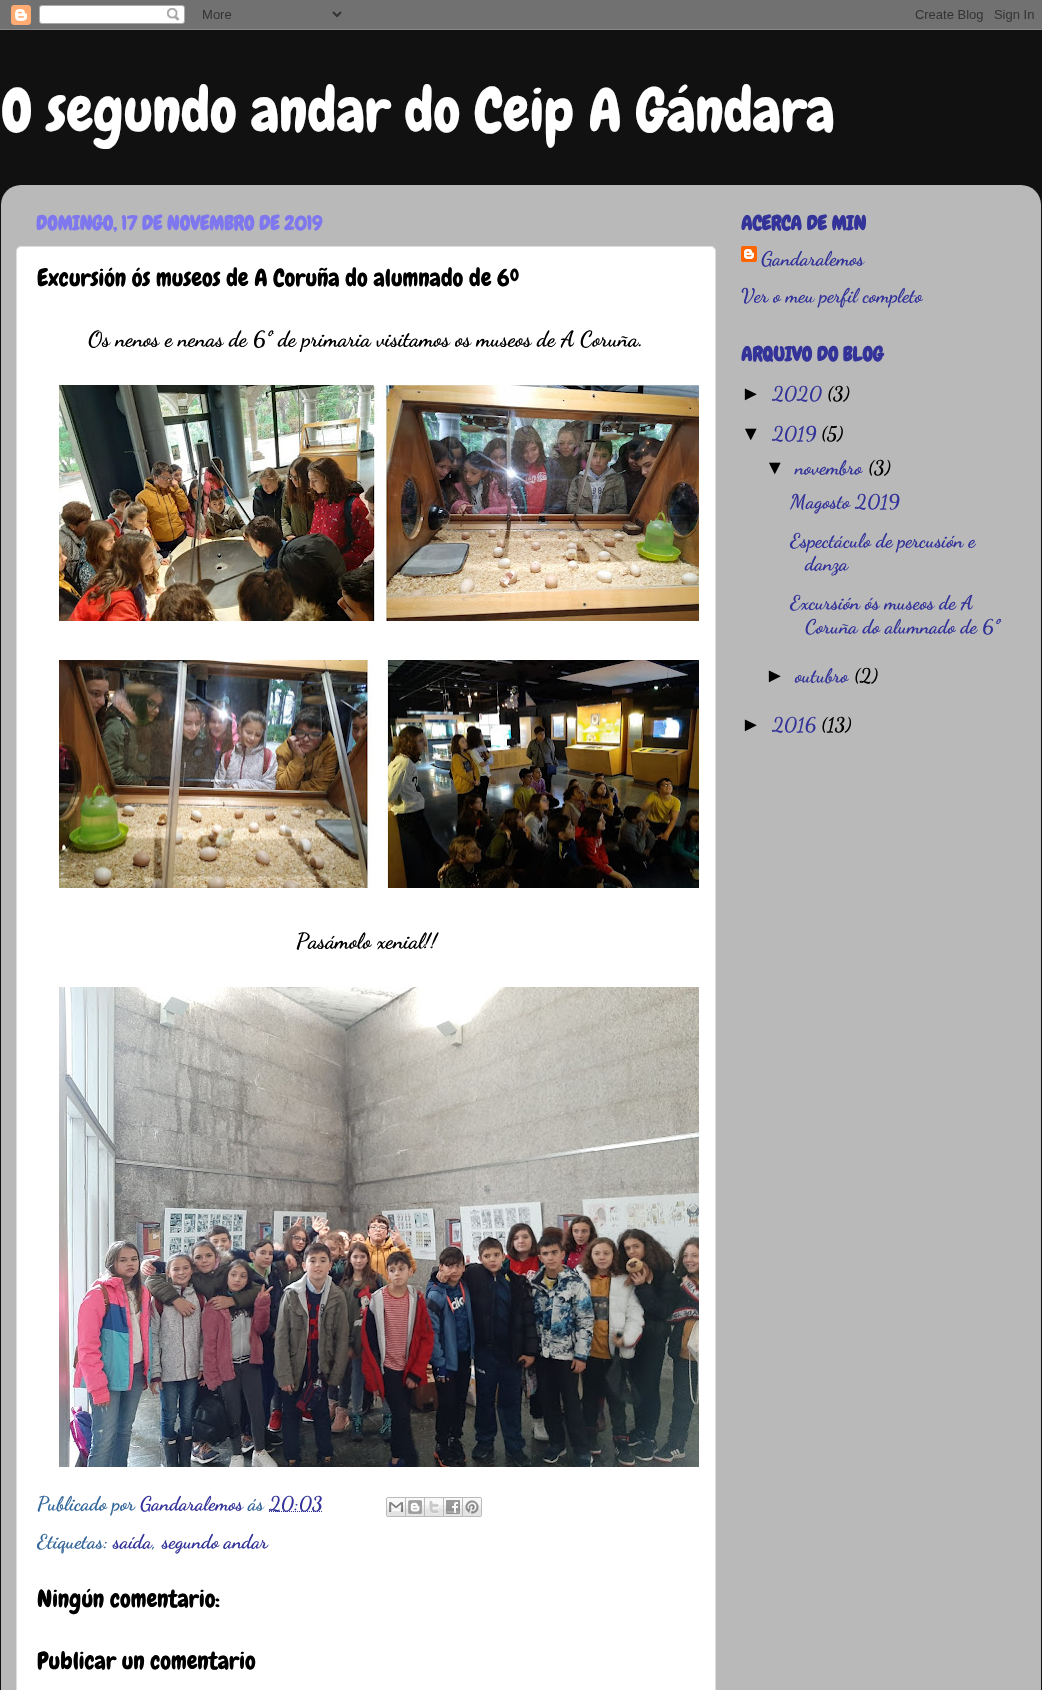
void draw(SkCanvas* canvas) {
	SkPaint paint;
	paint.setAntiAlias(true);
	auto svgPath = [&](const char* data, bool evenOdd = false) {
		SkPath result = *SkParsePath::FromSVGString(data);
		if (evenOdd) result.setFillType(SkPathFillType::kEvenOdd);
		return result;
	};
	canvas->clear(0xff111111);
	canvas->drawImageRect(SkImages::DeferredFromEncodedData(SkData::MakeFromFileName("img1.png")), SkRect::MakeXYWH(0, 0, 1042, 30), SkSamplingOptions());
	SkFont f1(fontMgr->matchFamilyStyle("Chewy", SkFontStyle::Normal()), 60);
	f1.setSubpixel(true);
	paint.setColor(0xffffffff);
	canvas->drawString("O segundo andar do Ceip A Gándara", 1, 131, f1, paint);
	canvas->drawImageRect(SkImages::DeferredFromEncodedData(SkData::MakeFromFileName("img2.png")), SkRect::MakeXYWH(1, 185, 1040, 1505), SkSamplingOptions());
	SkFont f2(fontMgr->matchFamilyStyle("Chewy", SkFontStyle::Bold()), 20);
	f2.setSubpixel(true);
	paint.setColor(0xff7f77ee);
	canvas->drawString("DOMINGO, 17 DE NOVEMBRO DE 2019", 36, 230, f2, paint);
	paint.setColor(0xffffffff);
	canvas->drawRoundRect(SkRect::MakeXYWH(16.5, 246.5, 699, 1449), 4.5, 4.5, paint);
	paint.setStroke(true);
	paint.setStrokeWidth(1);
	paint.setColor(0xffdddddd);
	canvas->drawRoundRect(SkRect::MakeXYWH(16.5, 246.5, 699, 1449), 4.5, 4.5, paint);
	SkFont f3(fontMgr->matchFamilyStyle("Chewy", SkFontStyle::Normal()), 24);
	f3.setSubpixel(true);
	paint.setStroke(false);
	paint.setColor(0xff000000);
	canvas->drawString("Excursión ós museos de A Coruña do alumnado de 6º", 37, 286, f3, paint);
	SkFont f4(fontMgr->matchFamilyStyle("Dancing Script", SkFontStyle::Bold()), 21.75);
	f4.setSubpixel(true);
	canvas->drawString("Os nenos e nenas de 6º de primaria visitamos os museos de A Coruña.", 88, 346, f4, paint);
	canvas->drawImageRect(SkImages::DeferredFromEncodedData(SkData::MakeFromFileName("img3.png")), SkRect::MakeXYWH(59, 385, 640, 236), SkSamplingOptions());
	canvas->drawImageRect(SkImages::DeferredFromEncodedData(SkData::MakeFromFileName("img4.png")), SkRect::MakeXYWH(59, 660, 640, 228), SkSamplingOptions());
	canvas->drawString("Pasámolo xenial!!", 296, 948, f4, paint);
	canvas->drawImageRect(SkImages::DeferredFromEncodedData(SkData::MakeFromFileName("img5.png")), SkRect::MakeXYWH(59, 987, 640, 480), SkSamplingOptions());
	SkFont f5(fontMgr->matchFamilyStyle("Dancing Script", SkFontStyle::Bold()), 19.75);
	f5.setSubpixel(true);
	paint.setColor(0xff336699);
	canvas->drawString("Publicado por", 37, 1510, f5, paint);
	paint.setColor(0xff333399);
	canvas->drawString("Gandaralemos", 140, 1510, f5, paint);
	paint.setColor(0xff336699);
	canvas->drawString("ás", 248, 1510, f5, paint);
	paint.setStroke(true);
	paint.setColor(0xff333399);
	paint.setPathEffect(SkDashPathEffect::Make({{1, 1}}, 0));
	canvas->drawPath(svgPath("M269 1511.5H323"), paint);
	paint.setPathEffect(nullptr);
	paint.setStroke(false);
	canvas->drawString("20:03", 269, 1510, f5, paint);
	canvas->drawImageRect(SkImages::DeferredFromEncodedData(SkData::MakeFromFileName("img6.png")), SkRect::MakeXYWH(386, 1497, 20, 20), SkSamplingOptions());
	canvas->drawImageRect(SkImages::DeferredFromEncodedData(SkData::MakeFromFileName("img7.png")), SkRect::MakeXYWH(406, 1497, 19, 20), SkSamplingOptions());
	canvas->drawImageRect(SkImages::DeferredFromEncodedData(SkData::MakeFromFileName("img8.png")), SkRect::MakeXYWH(425, 1497, 19, 20), SkSamplingOptions());
	canvas->drawImageRect(SkImages::DeferredFromEncodedData(SkData::MakeFromFileName("img9.png")), SkRect::MakeXYWH(444, 1497, 19, 20), SkSamplingOptions());
	canvas->drawImageRect(SkImages::DeferredFromEncodedData(SkData::MakeFromFileName("img10.png")), SkRect::MakeXYWH(463, 1497, 19, 20), SkSamplingOptions());
	paint.setColor(0xff336699);
	canvas->drawString("Etiquetas:", 37, 1548, f5, paint);
	paint.setColor(0xff333399);
	canvas->drawString("saída", 113, 1548, f5, paint);
	paint.setColor(0xff336699);
	canvas->drawString(",", 152, 1548, f5, paint);
	paint.setColor(0xff333399);
	canvas->drawString("segundo andar", 162, 1548, f5, paint);
	paint.setColor(0xff000000);
	canvas->drawString("Ningún comentario:", 37, 1607, f3, paint);
	canvas->drawString("Publicar un comentario", 37, 1669, f3, paint);
	paint.setColor(0xff333399);
	canvas->drawString("ACERCA DE MIN", 741, 230, f2, paint);
	canvas->drawImageRect(SkImages::DeferredFromEncodedData(SkData::MakeFromFileName("img11.png")), SkRect::MakeXYWH(741, 246, 16, 16), SkSamplingOptions());
	canvas->drawString("Gandaralemos", 761, 265, f5, paint);
	canvas->drawString("Ver o meu perfil completo", 741, 302, f5, paint);
	canvas->drawString("ARQUIVO DO BLOG", 741, 361, f2, paint);
	SkFont f6(fontMgr->matchFamilyStyle("Liberation Sans", SkFontStyle::Bold()), 19.75);
	f6.setSubpixel(true);
	paint.setColor(0xff000000);
	canvas->drawString("►", 741, 400, f6, paint);
	paint.setColor(0xff333399);
	canvas->drawString("2020", 772, 400, f5, paint);
	paint.setColor(0xff000000);
	canvas->drawString("(3)", 827, 400, f5, paint);
	canvas->drawString("▼", 741, 440, f6, paint);
	paint.setColor(0xff333399);
	canvas->drawString("2019", 772, 440, f5, paint);
	paint.setColor(0xff000000);
	canvas->drawString("(5)", 821, 440, f5, paint);
	canvas->drawString("▼", 765, 474, f6, paint);
	paint.setColor(0xff333399);
	canvas->drawString("novembro", 795, 474, f5, paint);
	paint.setColor(0xff000000);
	canvas->drawString("(3)", 868, 474, f5, paint);
	paint.setColor(0xff333399);
	canvas->drawString("Magosto 2019", 790, 508, f5, paint);
	canvas->drawString("Espectáculo de percusión e", 790, 547, f5, paint);
	canvas->drawString("danza", 805, 570, f5, paint);
	canvas->drawString("Excursión ós museos de A", 790, 609, f5, paint);
	canvas->drawString("Coruña do alumnado de 6º", 805, 633, f5, paint);
	paint.setColor(0xff000000);
	canvas->drawString("►", 765, 682, f6, paint);
	paint.setColor(0xff333399);
	canvas->drawString("outubro", 795, 682, f5, paint);
	paint.setColor(0xff000000);
	canvas->drawString("(2)", 854, 682, f5, paint);
	canvas->drawString("►", 741, 731, f6, paint);
	paint.setColor(0xff333399);
	canvas->drawString("2016", 772, 731, f5, paint);
	paint.setColor(0xff000000);
	canvas->drawString("(13)", 821, 731, f5, paint);
}
